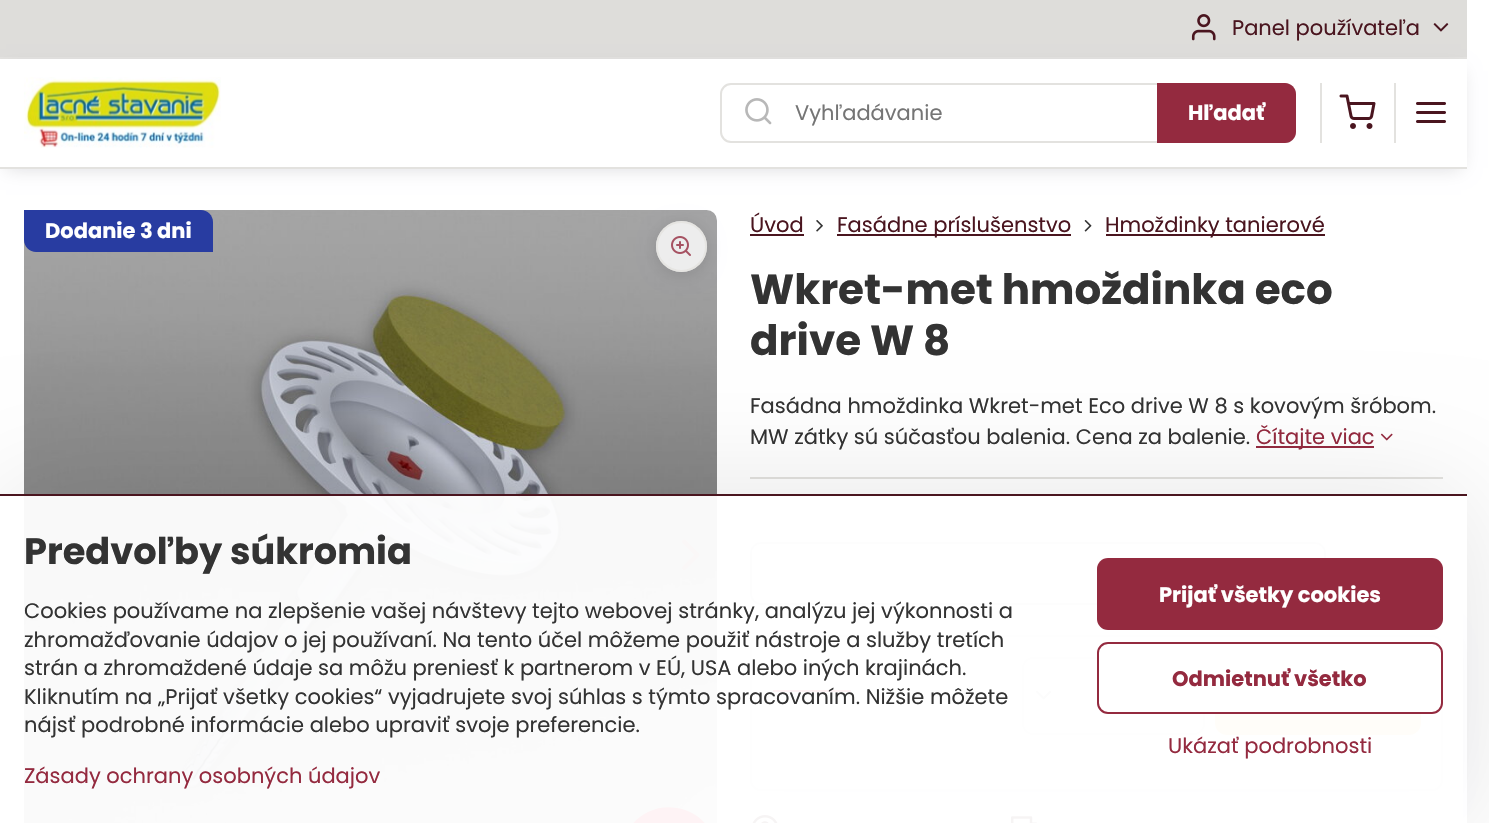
void draw(SkCanvas* canvas) {
	SkPaint paint;
	paint.setAntiAlias(true);
	auto svgPath = [&](const char* data, bool evenOdd = false) {
		SkPath result = *SkParsePath::FromSVGString(data);
		if (evenOdd) result.setFillType(SkPathFillType::kEvenOdd);
		return result;
	};
	canvas->clear(0xffffffff);
	paint.setColor(0xffdeddda);
	canvas->drawRect(SkRect::MakeXYWH(0, 0, 1467, 57), paint);
	paint.setColor(0xffe3e2df);
	canvas->drawRect(SkRect::MakeXYWH(0, 57, 1467, 2), paint);
	canvas->drawImageRect(SkImages::DeferredFromEncodedData(SkData::MakeFromFileName("img1.png")), SkRect::MakeXYWH(1191, 14, 25, 27), SkSamplingOptions());
	SkFont f1(fontMgr->matchFamilyStyle("Poppins", SkFontStyle::Normal()), 21);
	f1.setSubpixel(true);
	paint.setColor(0xff4a151f);
	canvas->drawString("Panel používateľa", 1232, 35, f1, paint);
	canvas->drawImageRect(SkImages::DeferredFromEncodedData(SkData::MakeFromFileName("img2.png")), SkRect::MakeXYWH(1433, 23, 16, 9), SkSamplingOptions());
	canvas->save();
	canvas->clipPath(svgPath("M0 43H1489V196H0ZM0 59H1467V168H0Z", true), true);
	paint.setColor(0x26000014);
	paint.setMaskFilter(SkMaskFilter::MakeBlur(kNormal_SkBlurStyle, 9));
	canvas->drawRect(SkRect::MakeXYWH(6, 71, 1455, 97), paint);
	paint.setMaskFilter(nullptr);
	canvas->restore();
	paint.setColor(0xffe3e2df);
	canvas->drawRect(SkRect::MakeXYWH(0, 167, 1467, 2), paint);
	canvas->drawImageRect(SkImages::DeferredFromEncodedData(SkData::MakeFromFileName("img3.png")), SkRect::MakeXYWH(24, 77, 197, 71), SkSamplingOptions());
	paint.setStroke(true);
	paint.setStrokeWidth(2);
	canvas->drawRoundRect(SkRect::MakeXYWH(721, 84, 574, 58), 10, 10, paint);
	canvas->drawImageRect(SkImages::DeferredFromEncodedData(SkData::MakeFromFileName("img4.png")), SkRect::MakeXYWH(745, 98, 27, 27), SkSamplingOptions());
	paint.setStroke(false);
	paint.setColor(0xff757575);
	canvas->drawString("Vyhľadávanie", 795, 120, f1, paint);
	paint.setColor(0xff942a3f);
	canvas->drawPath(svgPath("M1157 83H1285C1291 83 1296 88 1296 94V132C1296 138 1291 143 1285 143H1157Z"), paint);
	SkFont f2(fontMgr->matchFamilyStyle("Poppins", SkFontStyle::Bold()), 21);
	f2.setSubpixel(true);
	paint.setColor(0xffffffff);
	canvas->drawString("Hľadať", 1188, 120, f2, paint);
	paint.setColor(0xffe3e2df);
	canvas->drawRect(SkRect::MakeXYWH(1320, 83, 2, 60), paint);
	canvas->drawImageRect(SkImages::DeferredFromEncodedData(SkData::MakeFromFileName("img5.png")), SkRect::MakeXYWH(1339, 94, 37, 35), SkSamplingOptions());
	canvas->drawRect(SkRect::MakeXYWH(1394, 83, 2, 60), paint);
	canvas->drawImageRect(SkImages::DeferredFromEncodedData(SkData::MakeFromFileName("img6.png")), SkRect::MakeXYWH(1416, 102, 30, 21), SkSamplingOptions());
	canvas->drawImageRect(SkImages::DeferredFromEncodedData(SkData::MakeFromFileName("img8.png")), SkRect::MakeXYWH(24, 210, 693, 613), SkSamplingOptions());
	canvas->save();
	canvas->clipPath(svgPath("M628 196H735V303H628ZM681.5 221C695.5 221 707 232.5 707 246.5C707 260.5 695.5 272 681.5 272C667.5 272 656 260.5 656 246.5C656 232.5 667.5 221 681.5 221Z", true), true);
	paint.setColor(0x1f000014);
	paint.setMaskFilter(SkMaskFilter::MakeBlur(kNormal_SkBlurStyle, 9));
	canvas->drawRoundRect(SkRect::MakeXYWH(656, 224, 51, 51), 25.5, 25.5, paint);
	paint.setMaskFilter(nullptr);
	canvas->restore();
	paint.setColor(0xccffffff);
	canvas->drawCircle(681.5, 246.5, 25.5, paint);
	paint.setStroke(true);
	paint.setColor(0xcce3e2df);
	canvas->drawCircle(681.5, 246.5, 24.5, paint);
	canvas->drawImageRect(SkImages::DeferredFromEncodedData(SkData::MakeFromFileName("img7.png")), SkRect::MakeXYWH(671, 236, 20, 20), SkSamplingOptions());
	paint.setStroke(false);
	paint.setColor(0xff283ca1);
	canvas->drawPath(svgPath("M24 210H201C207.5 210 213 215.5 213 222V252H36C29.5 252 24 246.5 24 240Z"), paint);
	paint.setColor(0xffffffff);
	canvas->drawString("Dodanie 3 dni", 45, 238, f2, paint);
	canvas->drawImageRect(SkImages::DeferredFromEncodedData(SkData::MakeFromFileName("img9.png")), SkRect::MakeXYWH(41, 539, 18, 32), SkSamplingOptions());
	canvas->drawImageRect(SkImages::DeferredFromEncodedData(SkData::MakeFromFileName("img10.png")), SkRect::MakeXYWH(682, 539, 18, 32), SkSamplingOptions());
	paint.setStroke(true);
	paint.setColor(0xffd2d5d8);
	canvas->drawRoundRect(SkRect::MakeXYWH(751, 543, 574, 61), 10, 10, paint);
	canvas->drawImageRect(SkImages::DeferredFromEncodedData(SkData::MakeFromFileName("img15.png")), SkRect::MakeXYWH(752, 815, 26, 8), SkSamplingOptions());
	canvas->drawImageRect(SkImages::DeferredFromEncodedData(SkData::MakeFromFileName("img16.png")), SkRect::MakeXYWH(1011, 816, 26, 7), SkSamplingOptions());
	paint.setStroke(false);
	paint.setColor(0x26000014);
	paint.setMaskFilter(SkMaskFilter::MakeBlur(kNormal_SkBlurStyle, 16));
	canvas->drawRoundRect(SkRect::MakeXYWH(753, 641, 687, 150), 8, 8, paint);
	paint.setMaskFilter(nullptr);
	paint.setColor(0xffde122b);
	canvas->drawPath(svgPath("M677 808C703 812 721 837 716 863C712 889 687 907 661 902C635 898 617 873 622 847C626 821 651 803 677 808Z"), paint);
	paint.setColor(0xff4a151f);
	canvas->drawString("Úvod", 750, 232, f1, paint);
	canvas->drawRect(SkRect::MakeXYWH(750, 234, 54, 2), paint);
	canvas->drawImageRect(SkImages::DeferredFromEncodedData(SkData::MakeFromFileName("img11.png")), SkRect::MakeXYWH(816, 220, 7, 12), SkSamplingOptions());
	canvas->drawRect(SkRect::MakeXYWH(837, 234, 234, 2), paint);
	canvas->drawString("Fasádne príslušenstvo", 837, 232, f1, paint);
	canvas->drawImageRect(SkImages::DeferredFromEncodedData(SkData::MakeFromFileName("img12.png")), SkRect::MakeXYWH(1084, 220, 8, 12), SkSamplingOptions());
	canvas->drawRect(SkRect::MakeXYWH(1106, 234, 219, 2), paint);
	canvas->drawString("Hmoždinky tanierové", 1105, 232, f1, paint);
	SkFont f3(fontMgr->matchFamilyStyle("Poppins", SkFontStyle::Bold()), 42);
	f3.setSubpixel(true);
	paint.setColor(0xff333333);
	canvas->drawString("Wkret-met hmoždinka eco", 750, 304, f3, paint);
	canvas->drawString("drive W 8", 750, 355, f3, paint);
	canvas->drawString("Fasádna hmoždinka Wkret-met Eco drive W 8 s kovovým šróbom.", 750, 413, f1, paint);
	canvas->drawString("MW zátky sú súčasťou balenia. Cena za balenie.", 750, 444, f1, paint);
	paint.setColor(0xff942a3f);
	canvas->drawRect(SkRect::MakeXYWH(1256, 446, 118, 2), paint);
	canvas->drawString("Čítajte viac", 1256, 444, f1, paint);
	canvas->drawImageRect(SkImages::DeferredFromEncodedData(SkData::MakeFromFileName("img13.png")), SkRect::MakeXYWH(1380, 433, 13, 8), SkSamplingOptions());
	paint.setColor(0xffe3e2df);
	canvas->drawRect(SkRect::MakeXYWH(750, 477, 693, 2), paint);
	paint.setColor(0xffffffff);
	canvas->drawRoundRect(SkRect::MakeXYWH(751, 636, 691, 154), 10, 10, paint);
	paint.setStroke(true);
	paint.setColor(0xffe3e2df);
	canvas->drawRoundRect(SkRect::MakeXYWH(751, 636, 691, 154), 10, 10, paint);
	paint.setStroke(false);
	paint.setColor(0xffde122b);
	canvas->drawRect(SkRect::MakeXYWH(773, 690, 78, 2), paint);
	paint.setStroke(true);
	paint.setColor(0xffe3e2df);
	canvas->drawRoundRect(SkRect::MakeXYWH(1023, 658, 181, 76), 10, 10, paint);
	canvas->drawImageRect(SkImages::DeferredFromEncodedData(SkData::MakeFromFileName("img14.png")), SkRect::MakeXYWH(1036, 690, 16, 10), SkSamplingOptions());
	paint.setStroke(false);
	paint.setColor(0xffffcd80);
	canvas->drawRoundRect(SkRect::MakeXYWH(1215, 657, 206, 78), 12, 12, paint);
	canvas->save();
	canvas->clipPath(svgPath("M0 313H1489V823H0ZM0 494H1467V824H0Z", true), true);
	paint.setColor(0x1a000000);
	paint.setMaskFilter(SkMaskFilter::MakeBlur(kNormal_SkBlurStyle, 60));
	canvas->drawRect(SkRect::MakeXYWH(0, 494, 1467, 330), paint);
	paint.setMaskFilter(nullptr);
	canvas->restore();
	paint.setColor(0xf2ffffff);
	canvas->drawRect(SkRect::MakeXYWH(24, 496, 1439, 327), paint);
	paint.setColor(0xff4a151f);
	canvas->drawRect(SkRect::MakeXYWH(0, 494, 1467, 2), paint);
	SkFont f4(fontMgr->matchFamilyStyle("Poppins", SkFontStyle::Bold()), 36.75);
	f4.setSubpixel(true);
	paint.setColor(0xff333333);
	canvas->drawString("Predvoľby súkromia", 24, 564, f4, paint);
	canvas->drawString("Cookies používame na zlepšenie vašej návštevy tejto webovej stránky, analýzu jej výkonnosti a", 24, 618, f1, paint);
	canvas->drawString("zhromažďovanie údajov o jej používaní. Na tento účel môžeme použiť nástroje a služby tretích", 24, 647, f1, paint);
	canvas->drawString("strán a zhromaždené údaje sa môžu preniesť k partnerom v EÚ, USA alebo iných krajinách.", 24, 675, f1, paint);
	canvas->drawString("Kliknutím na „Prijať všetky cookies“ vyjadrujete svoj súhlas s týmto spracovaním. Nižšie môžete", 24, 704, f1, paint);
	canvas->drawString("nájsť podrobné informácie alebo upraviť svoje preferencie.", 24, 732, f1, paint);
	paint.setColor(0xff942a3f);
	canvas->drawString("Zásady ochrany osobných údajov", 24, 783, f1, paint);
	canvas->drawRoundRect(SkRect::MakeXYWH(1097, 558, 346, 72), 11, 11, paint);
	paint.setColor(0xffffffff);
	canvas->drawString("Prijať všetky cookies", 1159, 602, f2, paint);
	canvas->drawRoundRect(SkRect::MakeXYWH(1098, 643, 344, 70), 10, 10, paint);
	paint.setStroke(true);
	paint.setColor(0xff942a3f);
	canvas->drawRoundRect(SkRect::MakeXYWH(1098, 643, 344, 70), 10, 10, paint);
	paint.setStroke(false);
	canvas->drawString("Odmietnuť všetko", 1172, 686, f2, paint);
	canvas->drawString("Ukázať podrobnosti", 1168, 753, f1, paint);
}
